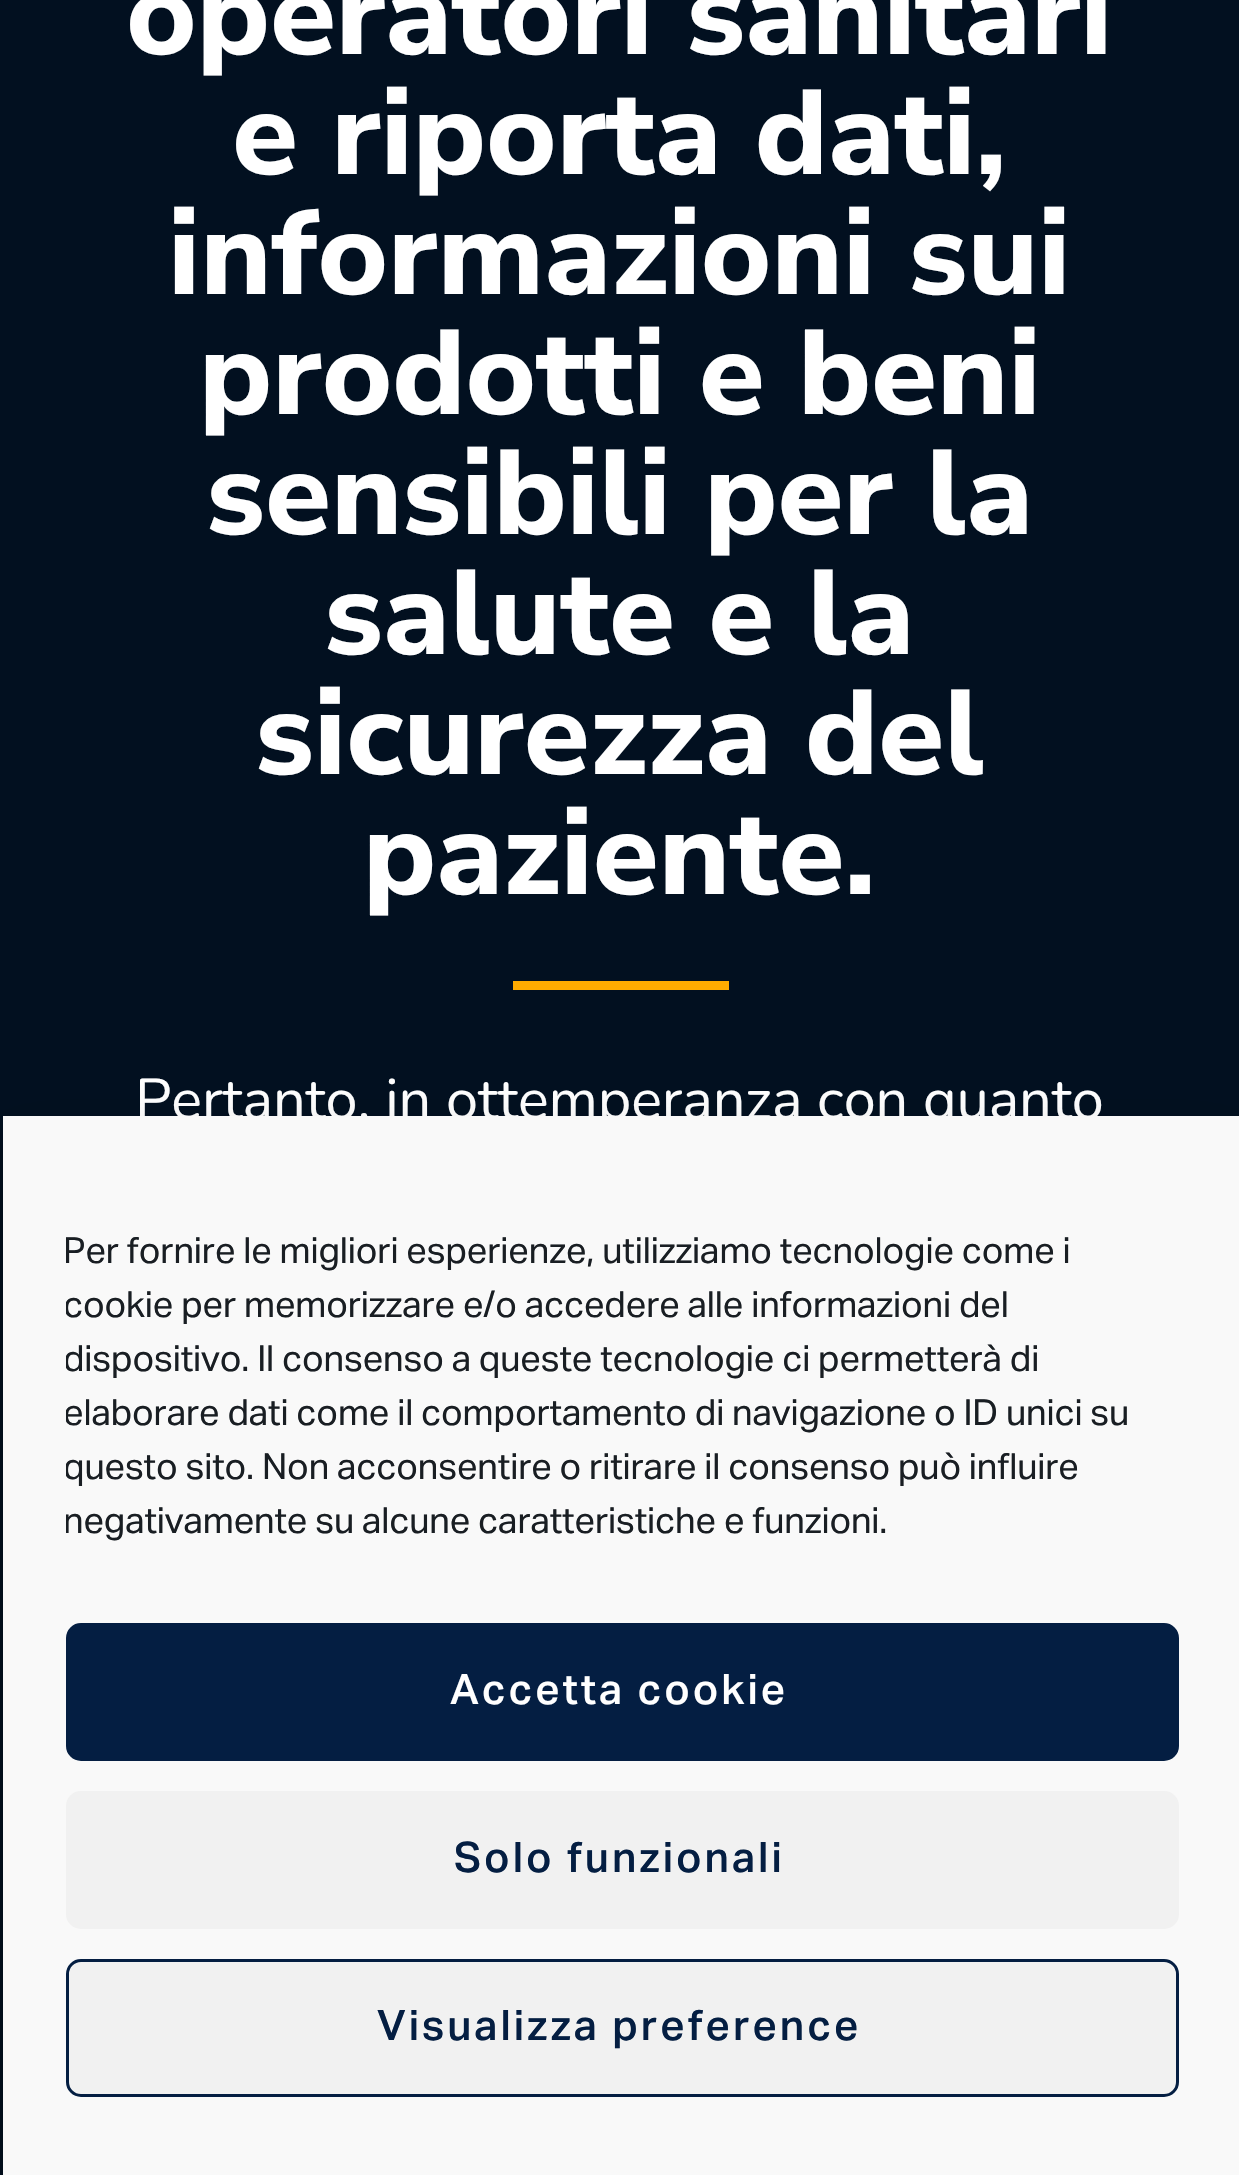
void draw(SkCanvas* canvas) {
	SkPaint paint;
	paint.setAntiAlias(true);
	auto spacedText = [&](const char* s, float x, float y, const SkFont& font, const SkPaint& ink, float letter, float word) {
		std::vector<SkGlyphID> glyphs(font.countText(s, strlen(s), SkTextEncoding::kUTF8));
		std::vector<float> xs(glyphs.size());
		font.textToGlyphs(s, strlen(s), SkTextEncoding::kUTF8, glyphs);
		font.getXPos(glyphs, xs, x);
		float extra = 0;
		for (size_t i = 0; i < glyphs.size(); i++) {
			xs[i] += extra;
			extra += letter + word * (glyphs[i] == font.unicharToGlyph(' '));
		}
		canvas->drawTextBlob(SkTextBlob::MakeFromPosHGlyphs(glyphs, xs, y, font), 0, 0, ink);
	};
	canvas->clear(0xff021020);
	SkFont f1(fontMgr->matchFamilyStyle("Nunito Sans", SkFontStyle(800, SkFontStyle::kNormal_Width, SkFontStyle::kUpright_Slant)), 120);
	f1.setSubpixel(true);
	paint.setColor(0xffffffff);
	canvas->drawString("operatori sanitari", 126, 54, f1, paint);
	canvas->drawString("e riporta dati,", 232, 174, f1, paint);
	canvas->drawString("informazioni sui", 168, 294, f1, paint);
	canvas->drawString("prodotti e beni", 199, 414, f1, paint);
	canvas->drawString("sensibili per la", 206, 534, f1, paint);
	canvas->drawString("salute e la", 324, 654, f1, paint);
	canvas->drawString("sicurezza del", 255, 774, f1, paint);
	canvas->drawString("paziente.", 363, 894, f1, paint);
	paint.setColor(0xffffab00);
	canvas->drawRect(SkRect::MakeXYWH(513, 981, 216, 9), paint);
	SkFont f2(fontMgr->matchFamilyStyle("Nunito", SkFontStyle::Normal()), 57.6);
	f2.setSubpixel(true);
	paint.setColor(0xffffffff);
	spacedText("Pertanto, in ottemperanza con quanto", 135, 1119, f2, paint, -0.1, 0);
	paint.setColor(0x3b000000);
	paint.setMaskFilter(SkMaskFilter::MakeBlur(kNormal_SkBlurStyle, 9));
	canvas->drawRect(SkRect::MakeXYWH(3, 1134, 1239, 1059), paint);
	paint.setMaskFilter(nullptr);
	paint.setColor(0x30000000);
	paint.setMaskFilter(SkMaskFilter::MakeBlur(kNormal_SkBlurStyle, 30));
	canvas->drawRect(SkRect::MakeXYWH(3, 1146, 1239, 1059), paint);
	paint.setMaskFilter(nullptr);
	paint.setColor(0xfff9f9f9);
	canvas->drawRect(SkRect::MakeXYWH(3, 1116, 1236, 1059), paint);
	canvas->save();
	canvas->clipRect(SkRect::MakeXYWH(66, 1224, 1113, 339));
	SkFont f3(fontMgr->matchFamilyStyle("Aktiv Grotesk", SkFontStyle::Normal()), 36);
	f3.setSubpixel(true);
	paint.setColor(0xff191e23);
	spacedText("Per fornire le migliori esperienze, utilizziamo tecnologie come i", 63, 1263, f3, paint, -0.1, 0);
	spacedText("cookie per memorizzare e/o accedere alle informazioni del", 63, 1317, f3, paint, -0.1, 0);
	spacedText("dispositivo. Il consenso a queste tecnologie ci permetterà di", 63, 1371, f3, paint, -0.1, 0);
	spacedText("elaborare dati come il comportamento di navigazione o ID unici su", 63, 1425, f3, paint, -0.1, 0);
	spacedText("questo sito. Non acconsentire o ritirare il consenso può influire", 63, 1479, f3, paint, -0.1, 0);
	spacedText("negativamente su alcune caratteristiche e funzioni.", 63, 1533, f3, paint, -0.1, 0);
	canvas->restore();
	paint.setColor(0xff041e42);
	canvas->drawRoundRect(SkRect::MakeXYWH(67.5, 1624.5, 1110, 135), 13.5, 13.5, paint);
	paint.setStroke(true);
	paint.setStrokeWidth(3);
	canvas->drawRoundRect(SkRect::MakeXYWH(67.5, 1624.5, 1110, 135), 13.5, 13.5, paint);
	SkFont f4(fontMgr->matchFamilyStyle("Aktiv Grotesk", SkFontStyle(500, SkFontStyle::kNormal_Width, SkFontStyle::kUpright_Slant)), 42);
	f4.setSubpixel(true);
	paint.setStroke(false);
	paint.setColor(0xffffffff);
	spacedText("Accetta cookie", 450, 1704, f4, paint, 3, 0);
	paint.setColor(0xfff1f1f1);
	canvas->drawRoundRect(SkRect::MakeXYWH(66, 1791, 1113, 138), 15, 15, paint);
	paint.setColor(0xff041e42);
	spacedText("Solo funzionali", 454, 1872, f4, paint, 3, 0);
	paint.setColor(0xfff1f1f1);
	canvas->drawRoundRect(SkRect::MakeXYWH(67.5, 1960.5, 1110, 135), 13.5, 13.5, paint);
	paint.setStroke(true);
	paint.setColor(0xff041e42);
	canvas->drawRoundRect(SkRect::MakeXYWH(67.5, 1960.5, 1110, 135), 13.5, 13.5, paint);
	paint.setStroke(false);
	spacedText("Visualizza preference", 377, 2040, f4, paint, 3, 0);
}
